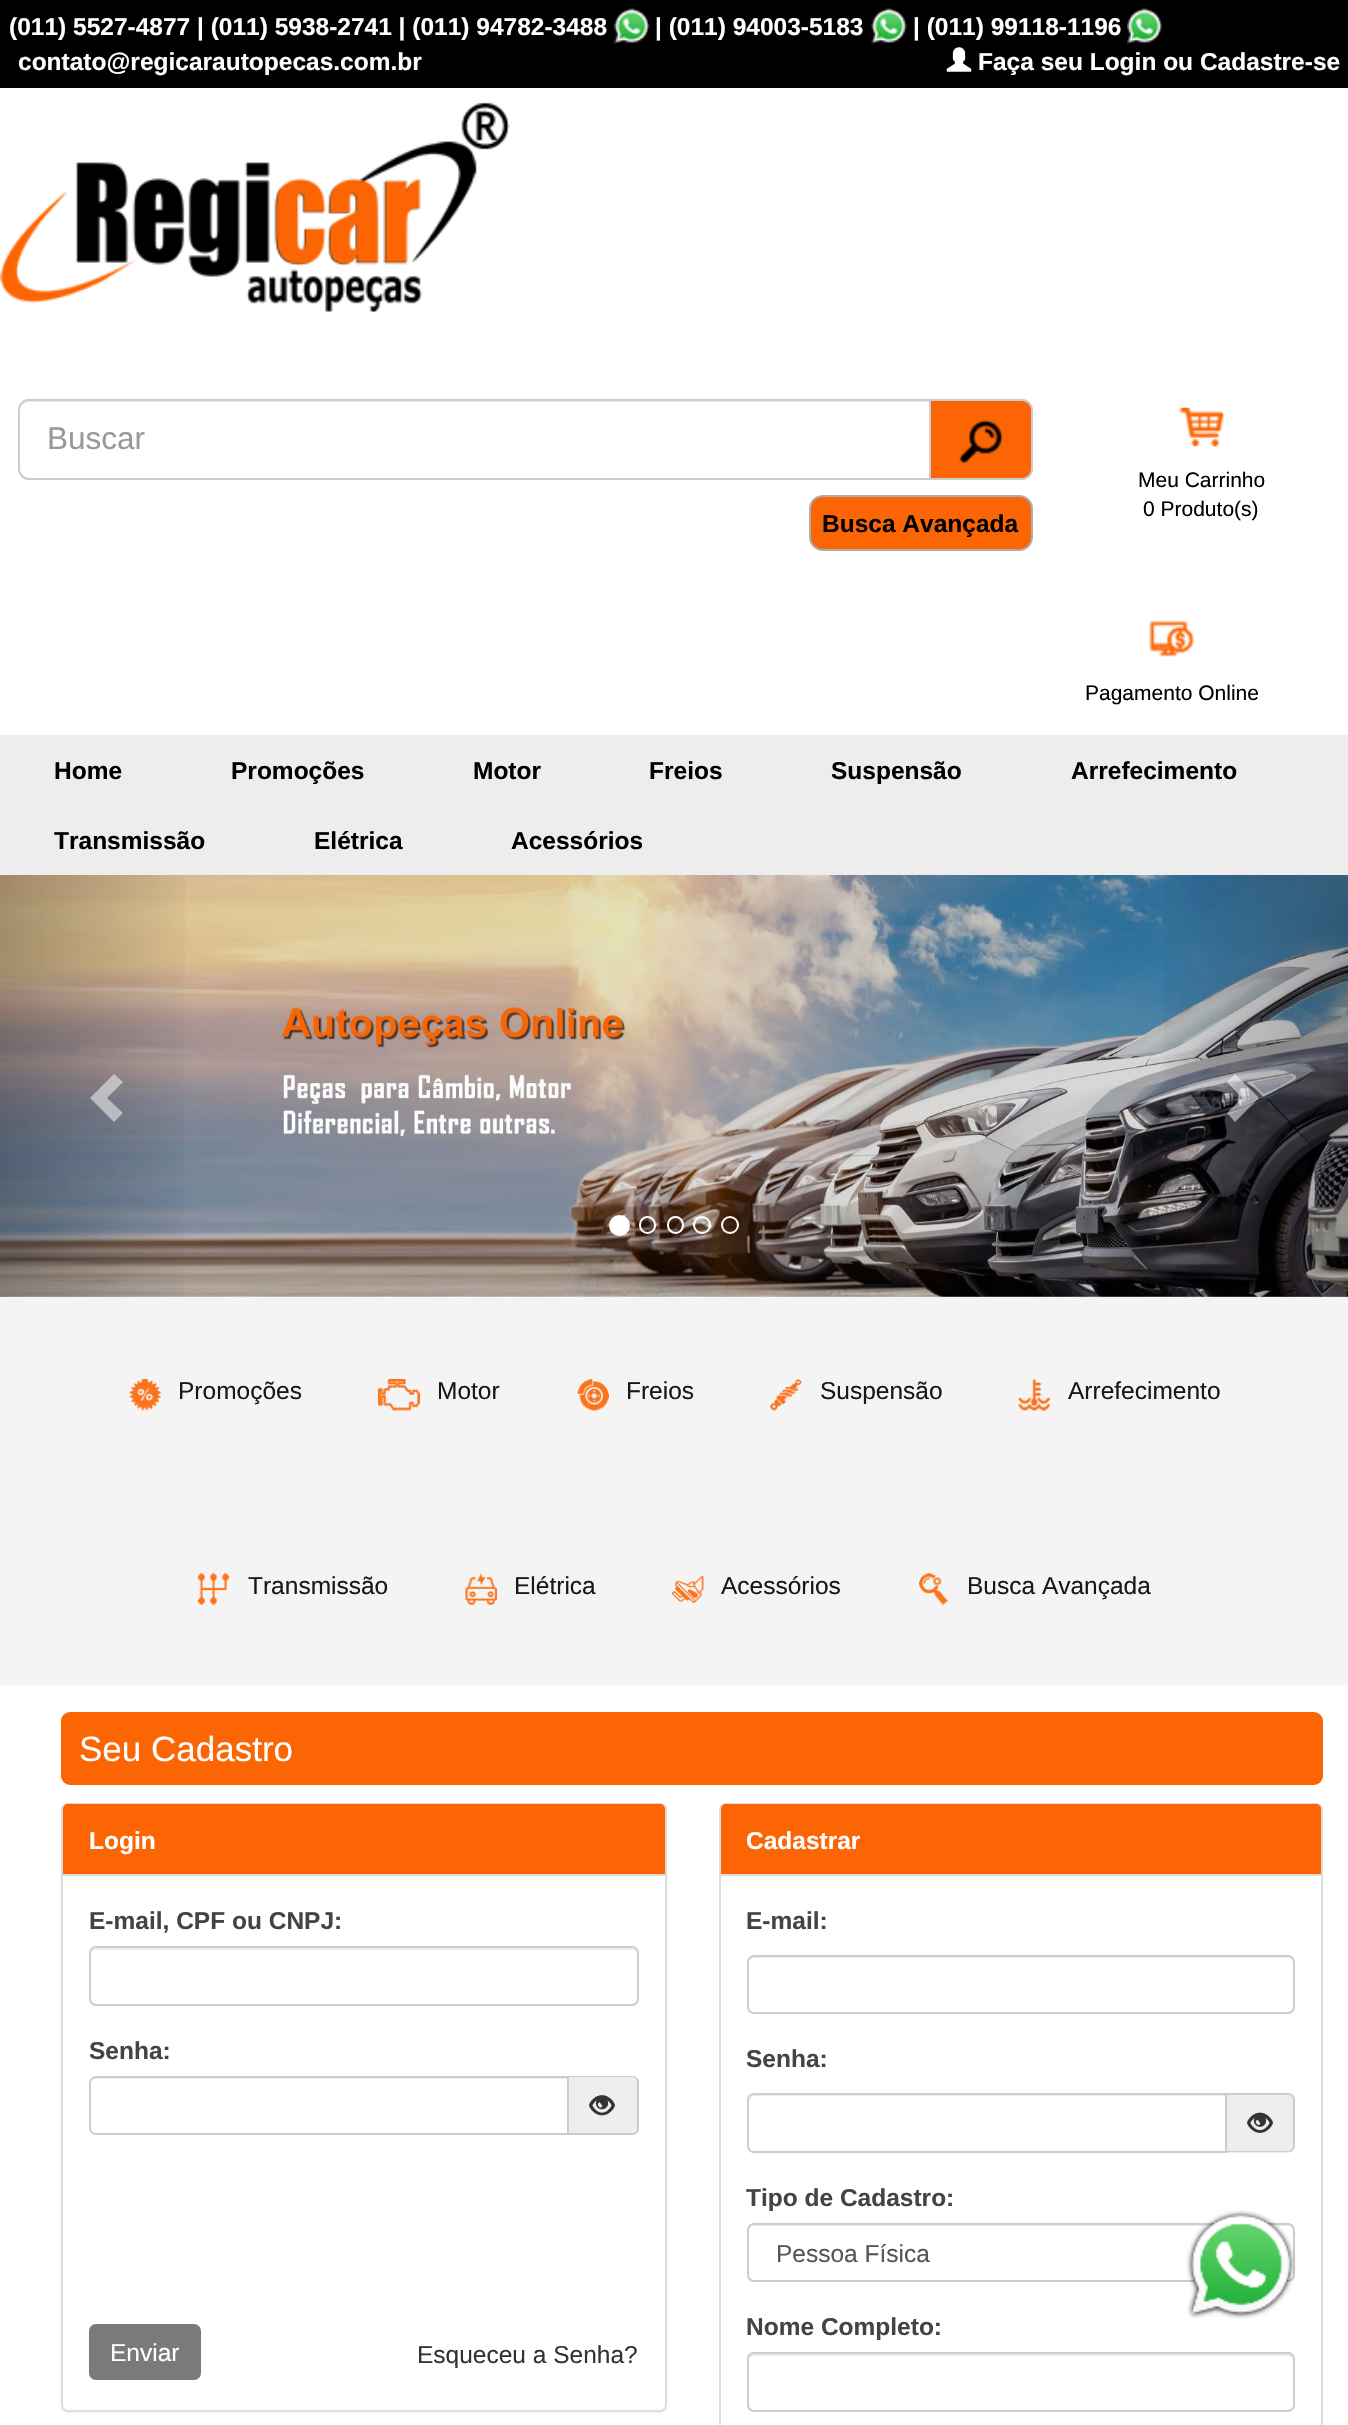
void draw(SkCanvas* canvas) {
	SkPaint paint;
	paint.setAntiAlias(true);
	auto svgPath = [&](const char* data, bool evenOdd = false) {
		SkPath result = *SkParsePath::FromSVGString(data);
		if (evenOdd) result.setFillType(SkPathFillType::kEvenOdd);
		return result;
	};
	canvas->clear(0xffffffff);
	paint.setColor(0xff000000);
	canvas->drawRect(SkRect::MakeXYWH(0, 0, 1348, 88), paint);
	SkFont f1(fontMgr->matchFamilyStyle("Liberation Sans", SkFontStyle::Bold()), 24.5);
	f1.setSubpixel(true);
	paint.setColor(0xffffffff);
	canvas->drawString("(011) 5527-4877 | (011) 5938-2741 | (011) 94782-3488", 9, 35, f1, paint);
	canvas->drawImageRect(SkImages::DeferredFromEncodedData(SkData::MakeFromFileName("img1.png")), SkRect::MakeXYWH(614, 8, 36, 36), SkSamplingOptions());
	canvas->drawString("| (011) 94003-5183", 655, 35, f1, paint);
	canvas->drawImageRect(SkImages::DeferredFromEncodedData(SkData::MakeFromFileName("img2.png")), SkRect::MakeXYWH(871, 8, 36, 36), SkSamplingOptions());
	canvas->drawString("| (011) 99118-1196", 913, 35, f1, paint);
	canvas->drawImageRect(SkImages::DeferredFromEncodedData(SkData::MakeFromFileName("img3.png")), SkRect::MakeXYWH(1127, 8, 35, 36), SkSamplingOptions());
	canvas->drawString("contato@regicarautopecas.com.br", 18, 70, f1, paint);
	canvas->drawImageRect(SkImages::DeferredFromEncodedData(SkData::MakeFromFileName("img4.png")), SkRect::MakeXYWH(946, 47, 26, 25), SkSamplingOptions());
	canvas->drawString("Faça seu Login ou Cadastre-se", 978, 70, f1, paint);
	canvas->drawImageRect(SkImages::DeferredFromEncodedData(SkData::MakeFromFileName("img5.png")), SkRect::MakeXYWH(0, 102, 510, 210), SkSamplingOptions());
	paint.setColor(0xffececec);
	canvas->drawPath(svgPath("M28 402H929V401H28C22 401 19 406 19 411C19 406 23 402 28 402Z"), paint);
	paint.setStroke(true);
	paint.setStrokeWidth(2);
	paint.setColor(0xffcccccc);
	canvas->drawPath(svgPath("M29 400H930V479H29C23.5 479 19 474.5 19 469V410C19 404.5 23.5 400 29 400Z"), paint);
	SkFont f2(fontMgr->matchFamilyStyle("Liberation Sans", SkFontStyle::Normal()), 31.5);
	f2.setSubpixel(true);
	paint.setStroke(false);
	paint.setColor(0xff999999);
	canvas->drawString("Buscar", 47, 449, f2, paint);
	paint.setColor(0xfffc6504);
	canvas->drawPath(svgPath("M930 400H1022C1027.5 400 1032 404.5 1032 410V469C1032 474.5 1027.5 479 1022 479H930Z"), paint);
	paint.setStroke(true);
	paint.setColor(0xffcccccc);
	canvas->drawPath(svgPath("M930 400H1022C1027.5 400 1032 404.5 1032 410V469C1032 474.5 1027.5 479 1022 479H930Z"), paint);
	canvas->drawImageRect(SkImages::DeferredFromEncodedData(SkData::MakeFromFileName("img6.png")), SkRect::MakeXYWH(959, 420, 44, 44), SkSamplingOptions());
	paint.setStroke(false);
	paint.setColor(0xfffc6504);
	canvas->drawRoundRect(SkRect::MakeXYWH(810, 496, 222, 54), 13, 13, paint);
	paint.setStroke(true);
	paint.setColor(0xffadadad);
	canvas->drawRoundRect(SkRect::MakeXYWH(810, 496, 222, 54), 13, 13, paint);
	paint.setStroke(false);
	paint.setColor(0xff000000);
	canvas->drawString("Busca Avançada", 822, 532, f1, paint);
	canvas->drawImageRect(SkImages::DeferredFromEncodedData(SkData::MakeFromFileName("img7.png")), SkRect::MakeXYWH(1179, 407, 45, 40), SkSamplingOptions());
	SkFont f3(fontMgr->matchFamilyStyle("Liberation Sans", SkFontStyle::Normal()), 21);
	f3.setSubpixel(true);
	canvas->drawString("Meu Carrinho", 1138, 487, f3, paint);
	canvas->drawString("0 Produto(s)", 1143, 516, f3, paint);
	canvas->drawImageRect(SkImages::DeferredFromEncodedData(SkData::MakeFromFileName("img8.png")), SkRect::MakeXYWH(1149, 621, 45, 36), SkSamplingOptions());
	canvas->drawString("Pagamento Online", 1085, 700, f3, paint);
	paint.setColor(0xffededed);
	canvas->drawRect(SkRect::MakeXYWH(0, 735, 1348, 140), paint);
	paint.setColor(0xff000000);
	canvas->drawString("Home", 54, 779, f1, paint);
	canvas->drawString("Promoções", 231, 779, f1, paint);
	canvas->drawString("Motor", 473, 779, f1, paint);
	canvas->drawString("Freios", 649, 779, f1, paint);
	canvas->drawString("Suspensão", 831, 779, f1, paint);
	canvas->drawString("Arrefecimento", 1071, 779, f1, paint);
	canvas->drawString("Transmissão", 54, 849, f1, paint);
	canvas->drawString("Elétrica", 314, 849, f1, paint);
	canvas->drawString("Acessórios", 511, 849, f1, paint);
	canvas->drawImageRect(SkImages::DeferredFromEncodedData(SkData::MakeFromFileName("img9.png")), SkRect::MakeXYWH(0, 875, 1348, 422), SkSamplingOptions());
	{
		const SkColor colors[] = {0x40000000, 0x00000000};
		const float stops[] = {0, 1};
		const SkPoint ends[] = {{0, 1086}, {203, 1086}};
		paint.setShader(SkGradientShader::MakeLinear(ends, colors, stops, 2, SkTileMode::kClamp));
		paint.setAlpha(255);
	}
	canvas->drawRect(SkRect::MakeXYWH(0, 875, 185, 422), paint);
	paint.setShader(nullptr);
	paint.setColor(0x80ffffff);
	canvas->drawPath(svgPath("M123 1082L107 1098L123 1113L114 1122L90 1098L114 1074Z"), paint);
	paint.setColor(0xffffffff);
	canvas->drawCircle(619.5, 1225.5, 9.5, paint);
	paint.setStroke(true);
	canvas->drawCircle(619.5, 1225.5, 9.5, paint);
	canvas->drawRoundRect(SkRect::MakeXYWH(640, 1217, 15, 16), 7.5, 7.5, paint);
	canvas->drawRoundRect(SkRect::MakeXYWH(668, 1217, 15, 16), 7.5, 7.5, paint);
	canvas->drawCircle(702, 1225, 8, paint);
	canvas->drawCircle(730, 1225, 8, paint);
	paint.setStroke(false);
	{
		const SkColor colors[] = {0x00000000, 0x40000000};
		const float stops[] = {0, 1};
		const SkPoint ends[] = {{1146, 1086}, {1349, 1086}};
		paint.setShader(SkGradientShader::MakeLinear(ends, colors, stops, 2, SkTileMode::kClamp));
		paint.setAlpha(255);
	}
	canvas->drawRect(SkRect::MakeXYWH(1164, 875, 184, 422), paint);
	paint.setShader(nullptr);
	paint.setColor(0x80ffffff);
	canvas->drawPath(svgPath("M1259 1098L1235 1122L1227 1113L1242 1098L1227 1082L1235 1074Z"), paint);
	paint.setColor(0xfff4f4f4);
	canvas->drawRect(SkRect::MakeXYWH(0, 1297, 1348, 388), paint);
	canvas->drawImageRect(SkImages::DeferredFromEncodedData(SkData::MakeFromFileName("img10.png")), SkRect::MakeXYWH(129, 1379, 32, 32), SkSamplingOptions());
	SkFont f4(fontMgr->matchFamilyStyle("Liberation Sans", SkFontStyle::Normal()), 24.5);
	f4.setSubpixel(true);
	paint.setColor(0xff181818);
	canvas->drawString("Promoções", 178, 1399, f4, paint);
	canvas->drawImageRect(SkImages::DeferredFromEncodedData(SkData::MakeFromFileName("img11.png")), SkRect::MakeXYWH(378, 1379, 42, 32), SkSamplingOptions());
	canvas->drawString("Motor", 437, 1399, f4, paint);
	canvas->drawImageRect(SkImages::DeferredFromEncodedData(SkData::MakeFromFileName("img12.png")), SkRect::MakeXYWH(577, 1379, 32, 32), SkSamplingOptions());
	canvas->drawString("Freios", 626, 1399, f4, paint);
	canvas->drawImageRect(SkImages::DeferredFromEncodedData(SkData::MakeFromFileName("img13.png")), SkRect::MakeXYWH(770, 1379, 32, 32), SkSamplingOptions());
	canvas->drawString("Suspensão", 820, 1399, f4, paint);
	canvas->drawImageRect(SkImages::DeferredFromEncodedData(SkData::MakeFromFileName("img14.png")), SkRect::MakeXYWH(1018, 1379, 32, 32), SkSamplingOptions());
	canvas->drawString("Arrefecimento", 1068, 1399, f4, paint);
	canvas->drawImageRect(SkImages::DeferredFromEncodedData(SkData::MakeFromFileName("img15.png")), SkRect::MakeXYWH(197, 1573, 33, 32), SkSamplingOptions());
	canvas->drawString("Transmissão", 248, 1594, f4, paint);
	canvas->drawImageRect(SkImages::DeferredFromEncodedData(SkData::MakeFromFileName("img16.png")), SkRect::MakeXYWH(465, 1573, 32, 32), SkSamplingOptions());
	canvas->drawString("Elétrica", 514, 1594, f4, paint);
	canvas->drawImageRect(SkImages::DeferredFromEncodedData(SkData::MakeFromFileName("img17.png")), SkRect::MakeXYWH(672, 1576, 32, 27), SkSamplingOptions());
	canvas->drawString("Acessórios", 721, 1594, f4, paint);
	canvas->drawImageRect(SkImages::DeferredFromEncodedData(SkData::MakeFromFileName("img18.png")), SkRect::MakeXYWH(919, 1573, 29, 32), SkSamplingOptions());
	canvas->drawString("Busca Avançada", 967, 1594, f4, paint);
	paint.setColor(0xfffc6504);
	canvas->drawRoundRect(SkRect::MakeXYWH(61, 1712, 1262, 73), 9, 9, paint);
	SkFont f5(fontMgr->matchFamilyStyle("Liberation Sans", SkFontStyle::Normal()), 35);
	f5.setSubpixel(true);
	paint.setColor(0xffffffff);
	canvas->drawString("Seu Cadastro", 79, 1761, f5, paint);
	paint.setColor(0x0d000000);
	paint.setMaskFilter(SkMaskFilter::MakeBlur(kNormal_SkBlurStyle, 1));
	canvas->drawRoundRect(SkRect::MakeXYWH(61, 1804, 606, 609), 7, 7, paint);
	paint.setMaskFilter(nullptr);
	paint.setColor(0xffffffff);
	canvas->drawRoundRect(SkRect::MakeXYWH(62, 1804, 604, 607), 6, 6, paint);
	paint.setStroke(true);
	paint.setColor(0xffdddddd);
	canvas->drawRoundRect(SkRect::MakeXYWH(62, 1804, 604, 607), 6, 6, paint);
	paint.setStroke(false);
	paint.setColor(0xfffc6504);
	canvas->drawPath(svgPath("M68 1804H660C663 1804 665 1806 665 1809V1876H63V1809C63 1806 65 1804 68 1804Z"), paint);
	paint.setColor(0xffdddddd);
	canvas->drawRect(SkRect::MakeXYWH(63, 1874, 602, 2), paint);
	paint.setColor(0xffffffff);
	canvas->drawString("Login", 89, 1849, f1, paint);
	paint.setColor(0xff444444);
	canvas->drawString("E-mail, CPF ou CNPJ:", 89, 1929, f1, paint);
	paint.setColor(0xffececec);
	canvas->drawPath(svgPath("M96 1950H632C635 1950 637 1952 637 1955C637 1952 636 1948 632 1948H96C92 1948 91 1952 91 1955C91 1952 93 1950 96 1950Z"), paint);
	paint.setStroke(true);
	paint.setColor(0xffcccccc);
	canvas->drawRoundRect(SkRect::MakeXYWH(90, 1947, 548, 58), 6, 6, paint);
	paint.setStroke(false);
	paint.setColor(0xff444444);
	canvas->drawString("Senha:", 89, 2059, f1, paint);
	paint.setColor(0xffececec);
	canvas->drawPath(svgPath("M96 2079H567V2077H96C93 2077 91 2079 91 2082V2084C91 2081 93 2079 96 2079Z"), paint);
	paint.setStroke(true);
	paint.setColor(0xffcccccc);
	canvas->drawPath(svgPath("M96 2077H568V2134H96C92.5 2134 90 2131.5 90 2128V2083C90 2079.5 92.5 2077 96 2077Z"), paint);
	paint.setStroke(false);
	paint.setColor(0xffeeeeee);
	canvas->drawPath(svgPath("M569 2076H632C636 2076 639 2079 639 2083V2128C639 2132 636 2135 632 2135H569Z"), paint);
	paint.setColor(0xffcccccc);
	canvas->drawPath(svgPath("M569 2076H632C636 2076 639 2079 639 2082V2128C639 2132 636 2135 632 2135H569ZM569 2077H632C635 2077 637 2080 637 2082V2128C637 2131 635 2133 632 2133H569Z", true), paint);
	canvas->drawImageRect(SkImages::DeferredFromEncodedData(SkData::MakeFromFileName("img19.png")), SkRect::MakeXYWH(589, 2095, 26, 21), SkSamplingOptions());
	paint.setColor(0xff7a7a7a);
	canvas->drawRoundRect(SkRect::MakeXYWH(89, 2324, 112, 56), 7, 7, paint);
	paint.setColor(0xffffffff);
	canvas->drawString("Enviar", 110, 2361, f4, paint);
	paint.setColor(0xff333333);
	canvas->drawString("Esqueceu a Senha?", 417, 2363, f4, paint);
	paint.setStroke(true);
	paint.setColor(0xffdddddd);
	canvas->drawRoundRect(SkRect::MakeXYWH(720, 1804, 602, 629), 6, 6, paint);
	paint.setStroke(false);
	paint.setColor(0xfffc6504);
	canvas->drawPath(svgPath("M726 1804H1316C1319 1804 1321 1806 1321 1809V1876H721V1809C721 1806 723 1804 726 1804Z"), paint);
	paint.setColor(0xffdddddd);
	canvas->drawRect(SkRect::MakeXYWH(721, 1874, 600, 2), paint);
	paint.setColor(0xffffffff);
	canvas->drawString("Cadastrar", 746, 1849, f1, paint);
	paint.setColor(0xff444444);
	canvas->drawString("E-mail:", 746, 1929, f1, paint);
	paint.setColor(0xffececec);
	canvas->drawPath(svgPath("M754 1958H1288C1291 1958 1293 1961 1293 1964C1293 1961 1292 1957 1288 1957H754C750 1957 749 1961 749 1964C749 1961 751 1958 754 1958Z"), paint);
	paint.setStroke(true);
	paint.setColor(0xffcccccc);
	canvas->drawRoundRect(SkRect::MakeXYWH(748, 1956, 546, 57), 6, 6, paint);
	paint.setStroke(false);
	paint.setColor(0xff444444);
	canvas->drawString("Senha:", 746, 2067, f1, paint);
	paint.setColor(0xffececec);
	canvas->drawPath(svgPath("M754 2096H1225V2095H754C751 2095 749 2097 749 2100V2102C749 2099 751 2096 754 2096Z"), paint);
	paint.setStroke(true);
	paint.setColor(0xffcccccc);
	canvas->drawPath(svgPath("M754 2094H1226V2152H754C750.5 2152 748 2149.5 748 2146V2100C748 2096.5 750.5 2094 754 2094Z"), paint);
	paint.setStroke(false);
	paint.setColor(0xffeeeeee);
	canvas->drawPath(svgPath("M1227 2093H1288C1292 2093 1295 2096 1295 2100V2146C1295 2150 1292 2153 1288 2153H1227Z"), paint);
	paint.setColor(0xffcccccc);
	canvas->drawPath(svgPath("M1227 2093H1288C1292 2093 1295 2096 1295 2100V2146C1295 2149 1292 2152 1288 2152H1227ZM1227 2095H1288C1291 2095 1293 2097 1293 2100V2146C1293 2148 1291 2151 1288 2151H1227Z", true), paint);
	canvas->drawImageRect(SkImages::DeferredFromEncodedData(SkData::MakeFromFileName("img20.png")), SkRect::MakeXYWH(1247, 2112, 26, 21), SkSamplingOptions());
	paint.setColor(0xff444444);
	canvas->drawString("Tipo de Cadastro:", 746, 2206, f1, paint);
	paint.setColor(0xffececec);
	canvas->drawPath(svgPath("M754 2226H1288C1291 2226 1293 2228 1293 2231C1293 2228 1292 2224 1288 2224H754C750 2224 749 2228 749 2231C749 2228 751 2226 754 2226Z"), paint);
	paint.setStroke(true);
	paint.setColor(0xffcccccc);
	canvas->drawRoundRect(SkRect::MakeXYWH(748, 2224, 546, 57), 6, 6, paint);
	paint.setStrokeWidth(3.5);
	paint.setColor(0xff555555);
	canvas->drawPath(svgPath("M1272 2249.5L1279 2256.5L1286 2249.5"), paint);
	paint.setStroke(false);
	canvas->drawString("Pessoa Física", 776, 2262, f4, paint);
	paint.setColor(0xff444444);
	canvas->drawString("Nome Completo:", 746, 2335, f1, paint);
	paint.setColor(0xffececec);
	canvas->drawPath(svgPath("M754 2356H1288C1291 2356 1293 2358 1293 2361C1293 2358 1292 2354 1288 2354H754C750 2354 749 2358 749 2361C749 2358 751 2356 754 2356Z"), paint);
	paint.setStroke(true);
	paint.setStrokeWidth(2);
	paint.setColor(0xffcccccc);
	canvas->drawRoundRect(SkRect::MakeXYWH(748, 2353, 546, 58), 6, 6, paint);
	canvas->drawImageRect(SkImages::DeferredFromEncodedData(SkData::MakeFromFileName("img21.png")), SkRect::MakeXYWH(1186, 2210, 110, 109), SkSamplingOptions());
}
